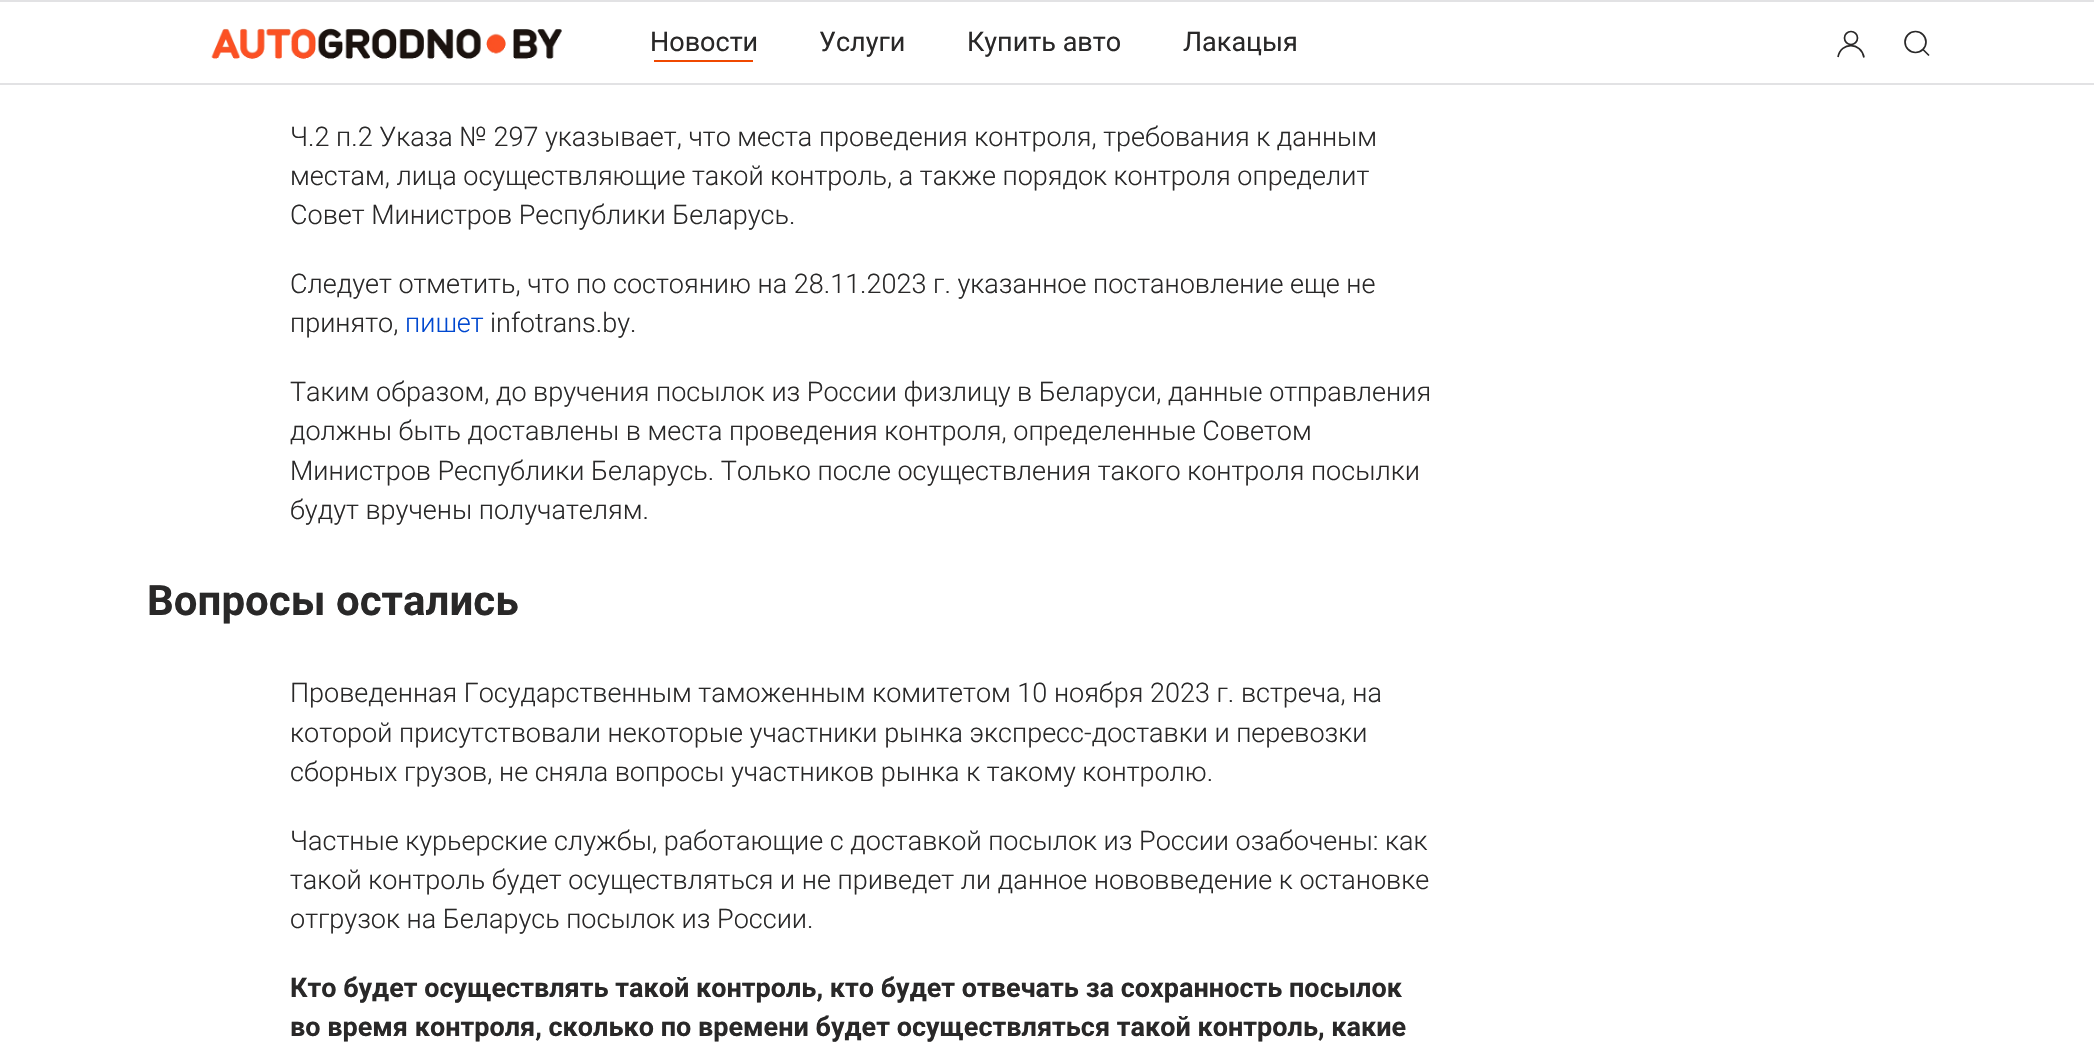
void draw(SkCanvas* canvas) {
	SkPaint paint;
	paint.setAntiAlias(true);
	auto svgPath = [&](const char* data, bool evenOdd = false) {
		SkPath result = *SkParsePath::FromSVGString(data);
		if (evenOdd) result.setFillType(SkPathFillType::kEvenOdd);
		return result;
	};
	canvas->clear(0xffffffff);
	paint.setColor(0xffe2e2e4);
	canvas->drawRect(SkRect::MakeXYWH(0, 0, 2094, 2), paint);
	canvas->drawRect(SkRect::MakeXYWH(0, 83, 2094, 2), paint);
	canvas->drawImageRect(SkImages::DeferredFromEncodedData(SkData::MakeFromFileName("img1.png")), SkRect::MakeXYWH(211, 28, 351, 31), SkSamplingOptions());
	SkFont f1(fontMgr->matchFamilyStyle("Roboto", SkFontStyle::Normal()), 27);
	f1.setSubpixel(true);
	paint.setColor(0xff292828);
	canvas->drawString("Новости", 650, 51, f1, paint);
	paint.setColor(0xfff04800);
	canvas->drawRect(SkRect::MakeXYWH(654, 60, 99, 2), paint);
	paint.setColor(0xff292828);
	canvas->drawString("Услуги", 819, 51, f1, paint);
	canvas->drawString("Купить авто", 967, 51, f1, paint);
	canvas->drawString("Лакацыя", 1183, 51, f1, paint);
	paint.setStroke(true);
	paint.setStrokeWidth(1.7);
	canvas->drawCircle(1851, 38, 6.5, paint);
	canvas->drawPath(svgPath("M1838 57C1841 41.5 1861 42 1864 57.5"), paint);
	canvas->drawCircle(1915.5, 42, 10.5, paint);
	canvas->drawPath(svgPath("M1923 49.5L1929 55.5Z"), paint);
	SkFont f2(fontMgr->matchFamilyStyle("Roboto", SkFontStyle(300, SkFontStyle::kNormal_Width, SkFontStyle::kUpright_Slant)), 27);
	f2.setSubpixel(true);
	paint.setStroke(false);
	canvas->drawString("Ч.2 п.2 Указа № 297 указывает, что места проведения контроля, требования к данным", 290, 146, f2, paint);
	canvas->drawString("местам, лица осуществляющие такой контроль, а также порядок контроля определит", 290, 185, f2, paint);
	canvas->drawString("Совет Министров Республики Беларусь.", 290, 224, f2, paint);
	canvas->drawString("Следует отметить, что по состоянию на 28.11.2023 г. указанное постановление еще не", 290, 293, f2, paint);
	canvas->drawString("принято,", 290, 332, f2, paint);
	paint.setColor(0xff0048d0);
	canvas->drawString("пишет", 405, 332, f2, paint);
	paint.setColor(0xff292828);
	canvas->drawString("infotrans.by.", 490, 332, f2, paint);
	canvas->drawString("Таким образом, до вручения посылок из России физлицу в Беларуси, данные отправления", 290, 401, f2, paint);
	canvas->drawString("должны быть доставлены в места проведения контроля, определенные Советом", 290, 440, f2, paint);
	canvas->drawString("Министров Республики Беларусь. Только после осуществления такого контроля посылки", 290, 480, f2, paint);
	canvas->drawString("будут вручены получателям.", 290, 519, f2, paint);
	SkFont f3(fontMgr->matchFamilyStyle("Roboto", SkFontStyle::Bold()), 42);
	f3.setSubpixel(true);
	canvas->drawString("Вопросы остались", 147, 615, f3, paint);
	canvas->drawString("Проведенная Государственным таможенным комитетом 10 ноября 2023 г. встреча, на", 290, 702, f2, paint);
	canvas->drawString("которой присутствовали некоторые участники рынка экспресс-доставки и перевозки", 290, 742, f2, paint);
	canvas->drawString("сборных грузов, не сняла вопросы участников рынка к такому контролю.", 290, 781, f2, paint);
	canvas->drawString("Частные курьерские службы, работающие с доставкой посылок из России озабочены: как", 290, 850, f2, paint);
	canvas->drawString("такой контроль будет осуществляться и не приведет ли данное нововведение к остановке", 290, 889, f2, paint);
	canvas->drawString("отгрузок на Беларусь посылок из России.", 290, 928, f2, paint);
	SkFont f4(fontMgr->matchFamilyStyle("Roboto", SkFontStyle::Bold()), 27);
	f4.setSubpixel(true);
	canvas->drawString("Кто будет осуществлять такой контроль, кто будет отвечать за сохранность посылок", 290, 997, f4, paint);
	canvas->drawString("во время контроля, сколько по времени будет осуществляться такой контроль, какие", 290, 1036, f4, paint);
}
